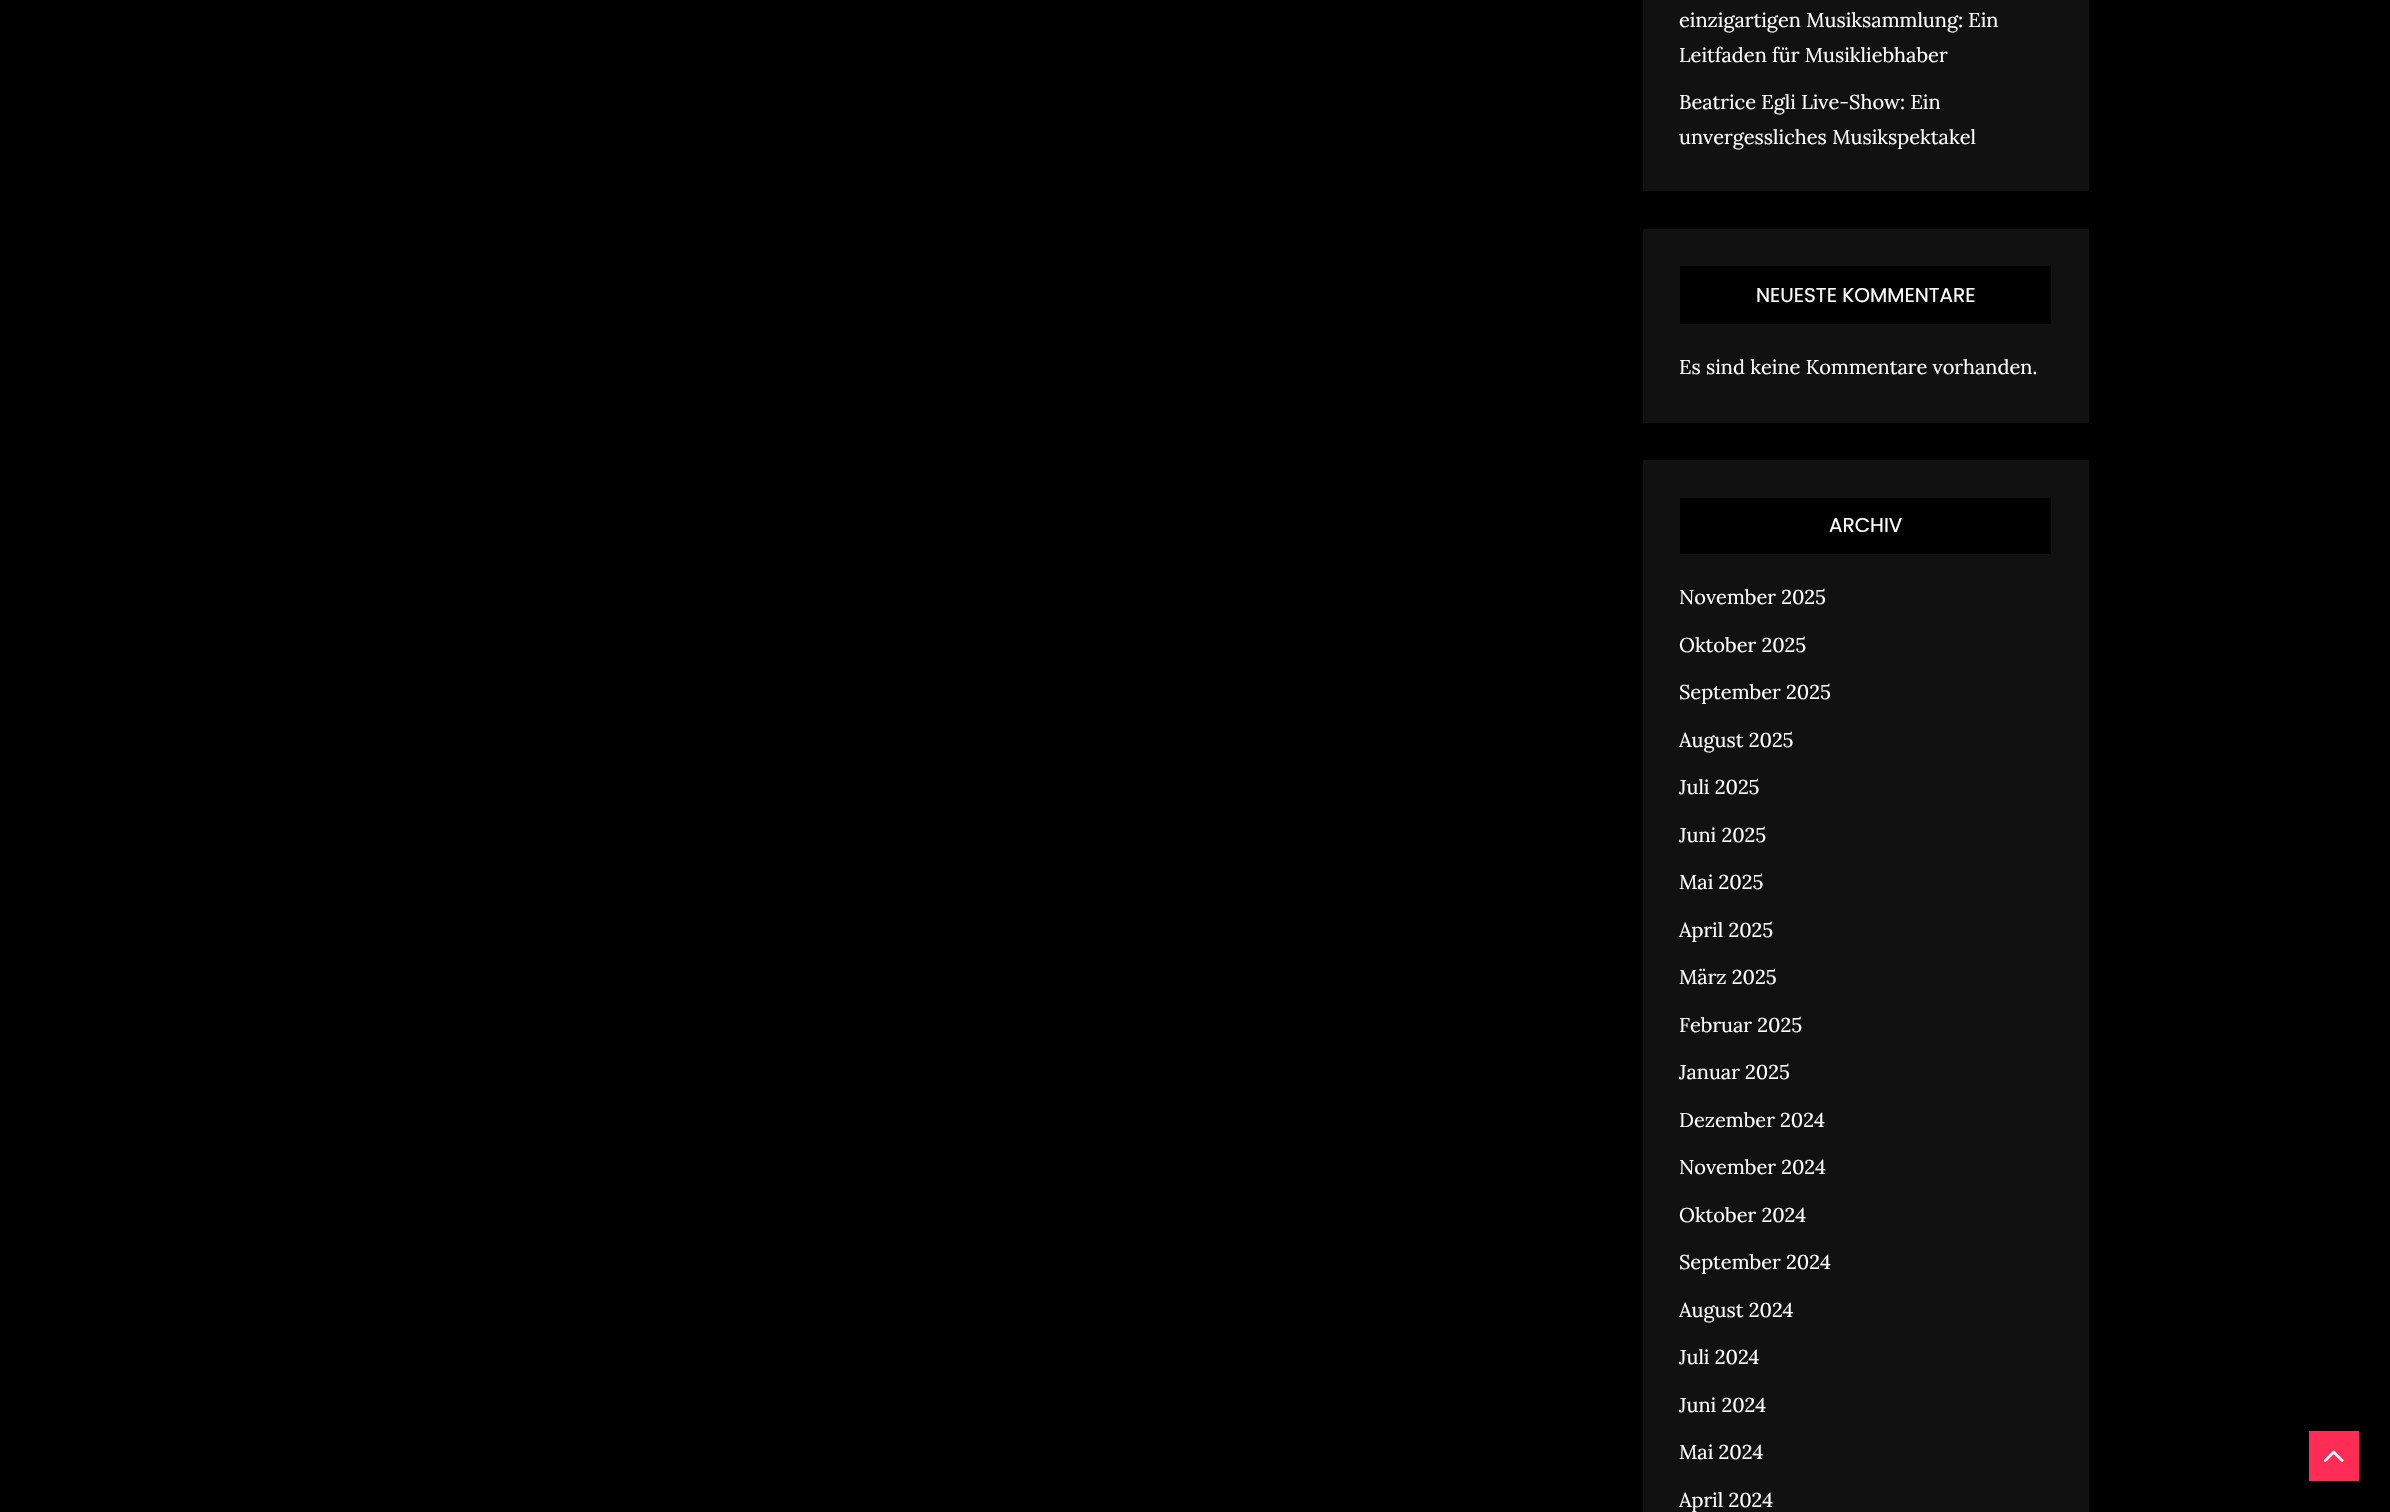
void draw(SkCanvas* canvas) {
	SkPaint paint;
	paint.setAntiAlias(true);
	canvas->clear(0xff000000);
	paint.setColor(0xff111111);
	canvas->drawRect(SkRect::MakeXYWH(1643, 0, 446, 191), paint);
	SkFont f1(fontMgr->matchFamilyStyle("Lora", SkFontStyle::Normal()), 20);
	f1.setSubpixel(true);
	paint.setColor(0xffffffff);
	canvas->drawString("einzigartigen Musiksammlung: Ein", 1679, 27, f1, paint);
	canvas->drawString("Leitfaden für Musikliebhaber", 1679, 62, f1, paint);
	canvas->drawString("Beatrice Egli Live-Show: Ein", 1679, 109, f1, paint);
	canvas->drawString("unvergessliches Musikspektakel", 1679, 144, f1, paint);
	paint.setColor(0xff111111);
	canvas->drawRect(SkRect::MakeXYWH(1643, 229, 446, 194), paint);
	paint.setColor(0xff000000);
	canvas->drawRect(SkRect::MakeXYWH(1680, 266, 371, 58), paint);
	SkFont f2(fontMgr->matchFamilyStyle("Poppins", SkFontStyle::Normal()), 20);
	f2.setSubpixel(true);
	paint.setColor(0xffffffff);
	canvas->drawString("NEUESTE KOMMENTARE", 1756, 302, f2, paint);
	canvas->drawString("Es sind keine Kommentare vorhanden.", 1679, 374, f1, paint);
	paint.setColor(0xff111111);
	canvas->drawRect(SkRect::MakeXYWH(1643, 460, 446, 1052), paint);
	paint.setColor(0xff000000);
	canvas->drawRect(SkRect::MakeXYWH(1680, 498, 371, 56), paint);
	paint.setColor(0xffffffff);
	canvas->drawString("ARCHIV", 1829, 532, f2, paint);
	canvas->drawString("November 2025", 1679, 604, f1, paint);
	canvas->drawString("Oktober 2025", 1679, 652, f1, paint);
	canvas->drawString("September 2025", 1679, 699, f1, paint);
	canvas->drawString("August 2025", 1679, 747, f1, paint);
	canvas->drawString("Juli 2025", 1679, 794, f1, paint);
	canvas->drawString("Juni 2025", 1679, 842, f1, paint);
	canvas->drawString("Mai 2025", 1679, 889, f1, paint);
	canvas->drawString("April 2025", 1679, 937, f1, paint);
	canvas->drawString("März 2025", 1679, 984, f1, paint);
	canvas->drawString("Februar 2025", 1679, 1032, f1, paint);
	canvas->drawString("Januar 2025", 1679, 1079, f1, paint);
	canvas->drawString("Dezember 2024", 1679, 1127, f1, paint);
	canvas->drawString("November 2024", 1679, 1174, f1, paint);
	canvas->drawString("Oktober 2024", 1679, 1222, f1, paint);
	canvas->drawString("September 2024", 1679, 1269, f1, paint);
	canvas->drawString("August 2024", 1679, 1317, f1, paint);
	canvas->drawString("Juli 2024", 1679, 1364, f1, paint);
	canvas->drawString("Juni 2024", 1679, 1412, f1, paint);
	canvas->drawString("Mai 2024", 1679, 1459, f1, paint);
	canvas->drawString("April 2024", 1679, 1507, f1, paint);
	paint.setColor(0xffff2d55);
	canvas->drawRect(SkRect::MakeXYWH(2309, 1431, 50, 50), paint);
	canvas->drawImageRect(SkImages::DeferredFromEncodedData(SkData::MakeFromFileName("img1.png")), SkRect::MakeXYWH(2324, 1450, 20, 12), SkSamplingOptions());
}
